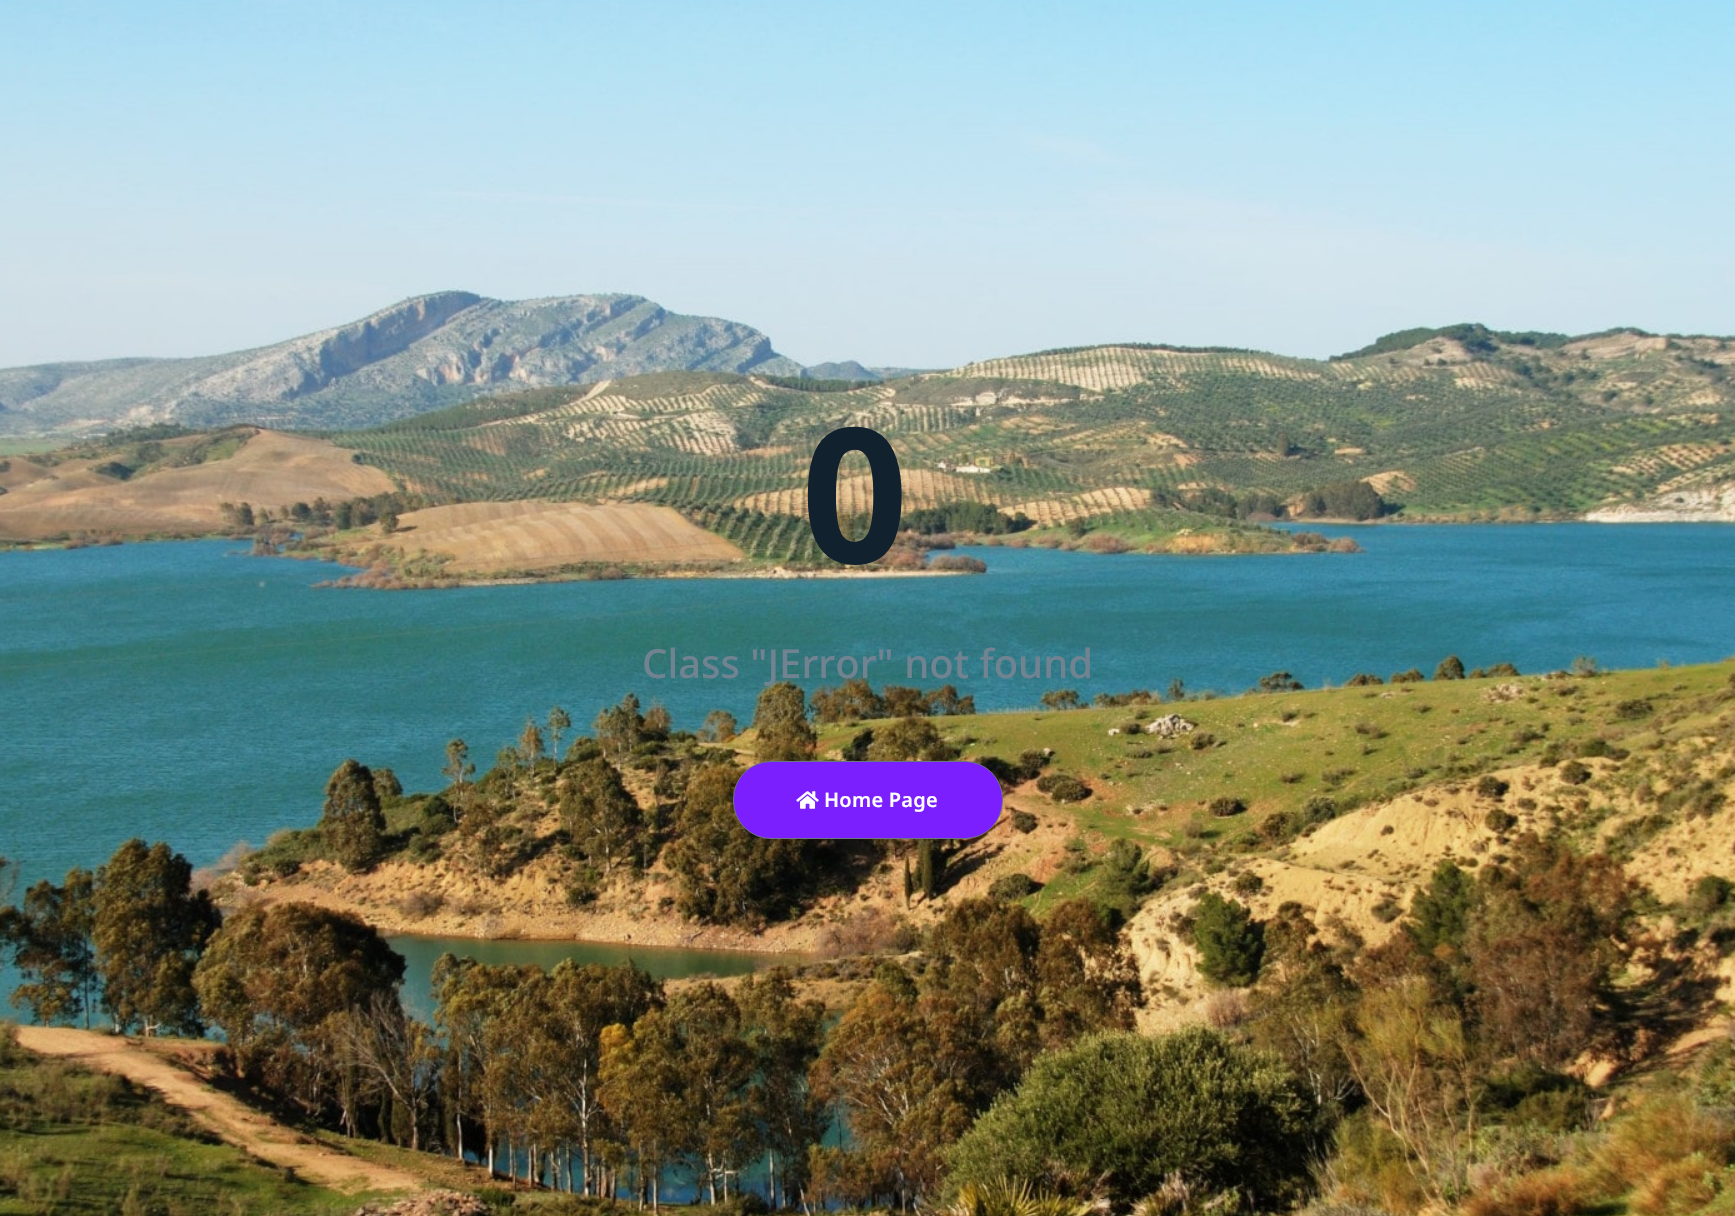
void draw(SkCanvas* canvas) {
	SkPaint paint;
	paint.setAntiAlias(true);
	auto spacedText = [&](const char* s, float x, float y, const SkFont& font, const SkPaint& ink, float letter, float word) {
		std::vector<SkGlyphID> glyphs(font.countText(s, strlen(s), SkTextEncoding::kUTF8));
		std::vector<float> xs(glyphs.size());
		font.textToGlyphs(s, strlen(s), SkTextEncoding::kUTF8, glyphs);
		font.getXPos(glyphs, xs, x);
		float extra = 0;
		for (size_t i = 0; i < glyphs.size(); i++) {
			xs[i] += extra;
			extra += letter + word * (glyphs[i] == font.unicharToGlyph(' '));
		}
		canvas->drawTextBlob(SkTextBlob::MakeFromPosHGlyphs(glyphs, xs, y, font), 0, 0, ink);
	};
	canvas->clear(0xffffffff);
	canvas->drawImageRect(SkImages::DeferredFromEncodedData(SkData::MakeFromFileName("img1.png")), SkRect::MakeXYWH(0, 0, 1735, 1216), SkSamplingOptions());
	SkFont f1(fontMgr->matchFamilyStyle("Noto Sans", SkFontStyle::Bold()), 188);
	f1.setSubpixel(true);
	paint.setColor(0xff11212d);
	spacedText("0", 801, 563, f1, paint, 25, 0);
	SkFont f2(fontMgr->matchFamilyStyle("Noto Sans", SkFontStyle(500, SkFontStyle::kNormal_Width, SkFontStyle::kUpright_Slant)), 40);
	f2.setSubpixel(true);
	paint.setColor(0xff718390);
	canvas->drawString("Class \"JError\" not found", 642, 678, f2, paint);
	paint.setColor(0xff7b1fff);
	canvas->drawRoundRect(SkRect::MakeXYWH(733.5, 761.5, 269, 77), 37.5, 37.5, paint);
	paint.setStroke(true);
	paint.setStrokeWidth(1);
	paint.setColor(0xff6c757d);
	canvas->drawRoundRect(SkRect::MakeXYWH(733.5, 761.5, 269, 77), 37.5, 37.5, paint);
	canvas->drawImageRect(SkImages::DeferredFromEncodedData(SkData::MakeFromFileName("img2.png")), SkRect::MakeXYWH(796, 791, 23, 18), SkSamplingOptions());
	SkFont f3(fontMgr->matchFamilyStyle("Noto Sans", SkFontStyle(600, SkFontStyle::kNormal_Width, SkFontStyle::kUpright_Slant)), 20);
	f3.setSubpixel(true);
	paint.setStroke(false);
	paint.setColor(0xffffffff);
	spacedText("Home Page", 824, 807, f3, paint, 0.25, 0);
}
